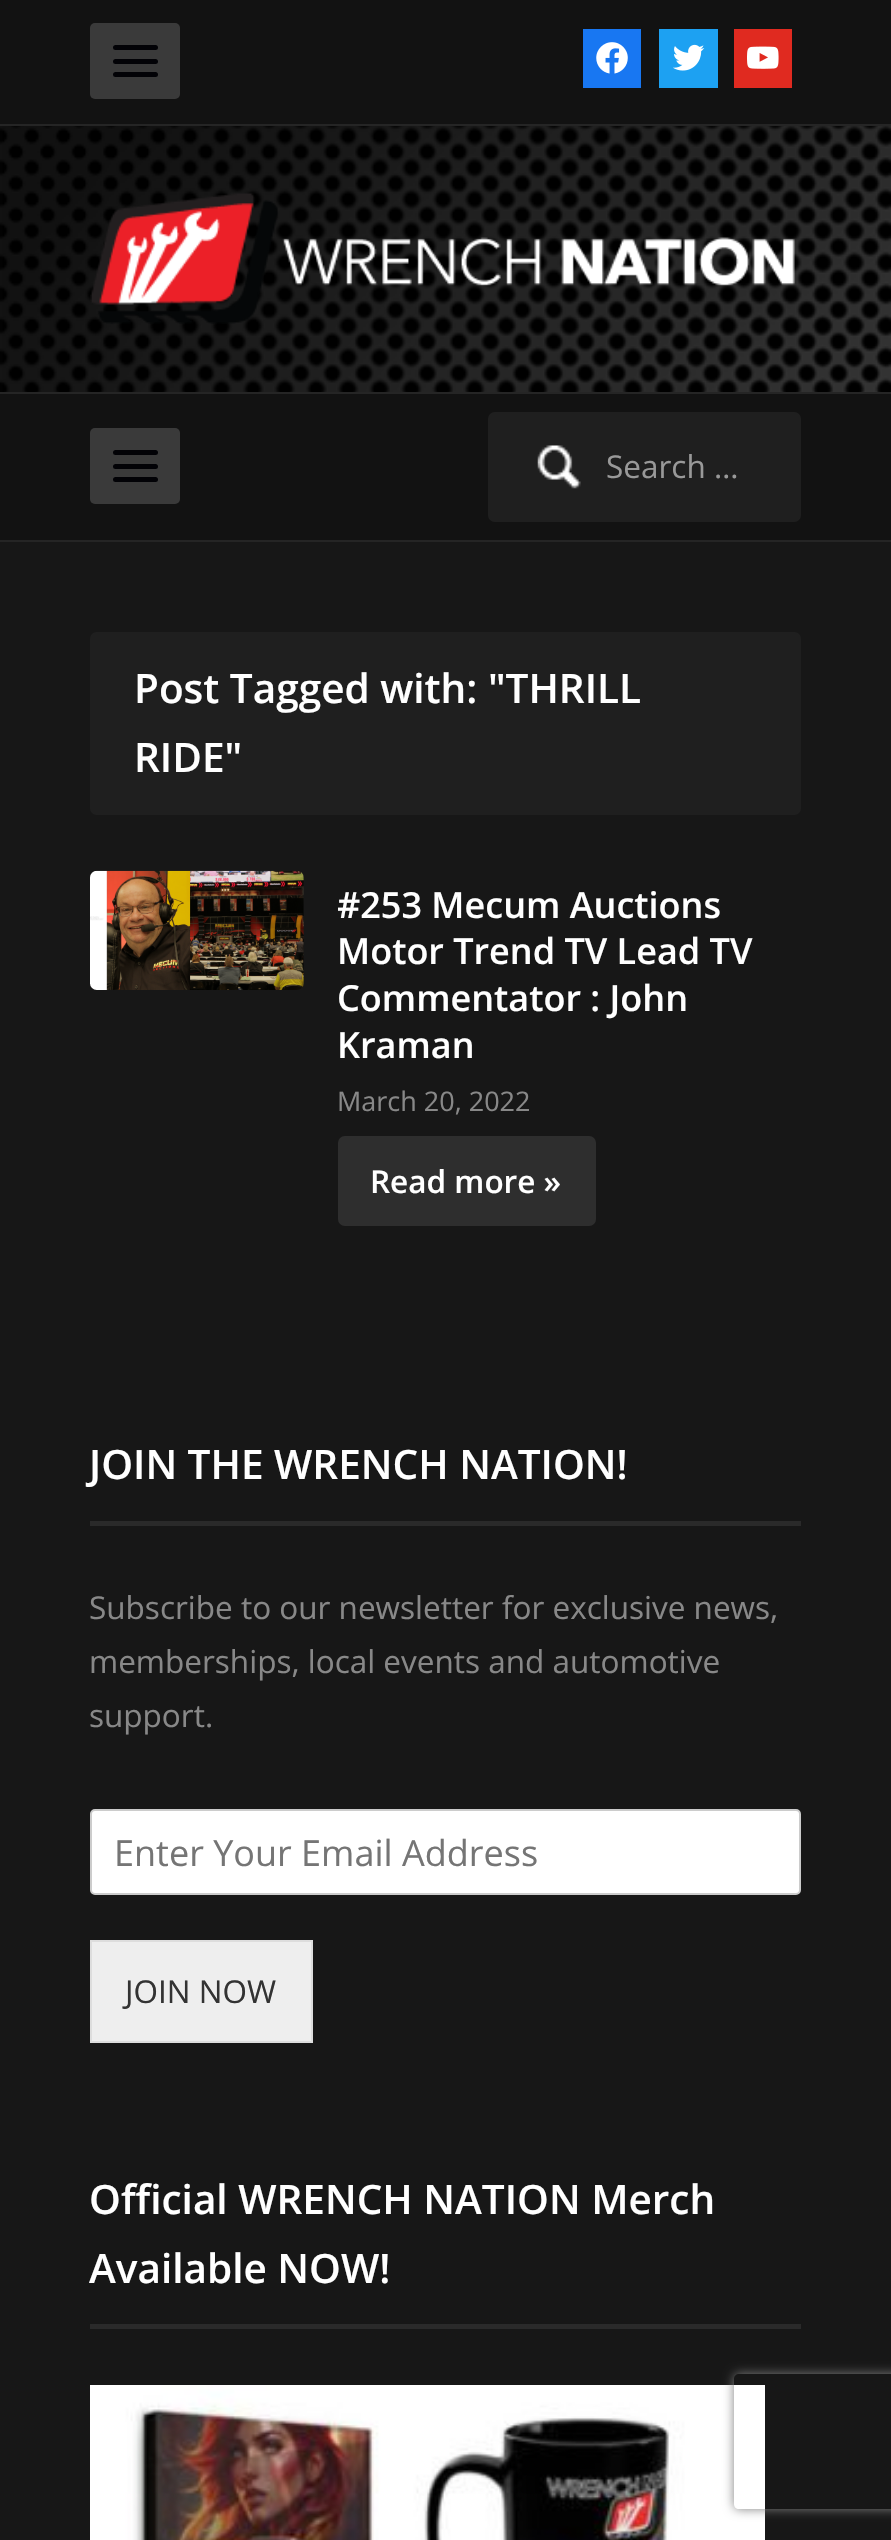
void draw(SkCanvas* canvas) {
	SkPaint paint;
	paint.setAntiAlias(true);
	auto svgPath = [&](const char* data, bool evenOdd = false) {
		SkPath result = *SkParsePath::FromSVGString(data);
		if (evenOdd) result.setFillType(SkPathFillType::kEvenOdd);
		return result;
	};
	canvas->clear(0xff171717);
	canvas->drawImageRect(SkImages::DeferredFromEncodedData(SkData::MakeFromFileName("img1.png")), SkRect::MakeXYWH(0, 126, 891, 266), SkSamplingOptions());
	paint.setColor(0xff121212);
	canvas->drawRect(SkRect::MakeXYWH(0, 0, 891, 124), paint);
	paint.setColor(0xff252525);
	canvas->drawRect(SkRect::MakeXYWH(0, 124, 891, 2), paint);
	paint.setColor(0xff3a3a3a);
	canvas->drawRoundRect(SkRect::MakeXYWH(90, 23, 90, 76), 5, 5, paint);
	paint.setColor(0xff020206);
	canvas->drawRoundRect(SkRect::MakeXYWH(113, 45, 45, 5), 2.5, 2.5, paint);
	canvas->drawRoundRect(SkRect::MakeXYWH(113, 59, 45, 5), 2.5, 2.5, paint);
	canvas->drawRoundRect(SkRect::MakeXYWH(113, 72, 45, 5), 2.5, 2.5, paint);
	paint.setColor(0xff1877f2);
	canvas->drawRect(SkRect::MakeXYWH(583, 29, 58, 59), paint);
	canvas->drawImageRect(SkImages::DeferredFromEncodedData(SkData::MakeFromFileName("img2.png")), SkRect::MakeXYWH(596, 42, 32, 32), SkSamplingOptions());
	paint.setColor(0xff1da1f2);
	canvas->drawRect(SkRect::MakeXYWH(659, 29, 59, 59), paint);
	canvas->drawImageRect(SkImages::DeferredFromEncodedData(SkData::MakeFromFileName("img3.png")), SkRect::MakeXYWH(673, 44, 32, 27), SkSamplingOptions());
	paint.setColor(0xffe02a20);
	canvas->drawRect(SkRect::MakeXYWH(734, 29, 58, 59), paint);
	canvas->drawImageRect(SkImages::DeferredFromEncodedData(SkData::MakeFromFileName("img4.png")), SkRect::MakeXYWH(747, 46, 32, 23), SkSamplingOptions());
	canvas->drawImageRect(SkImages::DeferredFromEncodedData(SkData::MakeFromFileName("img5.png")), SkRect::MakeXYWH(90, 193, 705, 131), SkSamplingOptions());
	paint.setColor(0xff121212);
	canvas->drawRect(SkRect::MakeXYWH(0, 394, 891, 146), paint);
	paint.setColor(0xff252525);
	canvas->drawRect(SkRect::MakeXYWH(0, 392, 891, 2), paint);
	canvas->drawRect(SkRect::MakeXYWH(0, 540, 891, 2), paint);
	paint.setColor(0xff3a3a3a);
	canvas->drawRoundRect(SkRect::MakeXYWH(90, 428, 90, 76), 5, 5, paint);
	paint.setColor(0xff020206);
	canvas->drawRoundRect(SkRect::MakeXYWH(113, 450, 45, 5), 2.5, 2.5, paint);
	canvas->drawRoundRect(SkRect::MakeXYWH(113, 464, 45, 5), 2.5, 2.5, paint);
	canvas->drawRoundRect(SkRect::MakeXYWH(113, 477, 45, 5), 2.5, 2.5, paint);
	paint.setColor(0xff1f1f1f);
	canvas->drawRoundRect(SkRect::MakeXYWH(488, 412, 313, 110), 7, 7, paint);
	canvas->drawImageRect(SkImages::DeferredFromEncodedData(SkData::MakeFromFileName("img6.png")), SkRect::MakeXYWH(537, 445, 44, 44), SkSamplingOptions());
	SkFont f1(fontMgr->matchFamilyStyle("Open Sans", SkFontStyle::Normal()), 31.5);
	f1.setSubpixel(true);
	paint.setColor(0xff999999);
	canvas->drawString("Search …", 606, 478, f1, paint);
	paint.setColor(0xff1f1f1f);
	canvas->drawRoundRect(SkRect::MakeXYWH(90, 632, 711, 183), 7, 7, paint);
	SkFont f2(fontMgr->matchFamilyStyle("Open Sans", SkFontStyle(600, SkFontStyle::kNormal_Width, SkFontStyle::kUpright_Slant)), 40.5);
	f2.setSubpixel(true);
	paint.setColor(0xffffffff);
	canvas->drawString("Post Tagged with: \"THRILL", 134, 703, f2, paint);
	canvas->drawString("RIDE\"", 134, 772, f2, paint);
	canvas->drawImageRect(SkImages::DeferredFromEncodedData(SkData::MakeFromFileName("img7.png")), SkRect::MakeXYWH(90, 870, 214, 120), SkSamplingOptions());
	canvas->save();
	canvas->clipPath(svgPath("M338 871H801V1242C801 1246 798 1249 794 1249H345C341 1249 338 1246 338 1242Z"), true);
	SkFont f3(fontMgr->matchFamilyStyle("Open Sans", SkFontStyle(600, SkFontStyle::kNormal_Width, SkFontStyle::kUpright_Slant)), 36);
	f3.setSubpixel(true);
	canvas->drawString("#253 Mecum Auctions", 337, 918, f3, paint);
	canvas->restore();
	canvas->drawString("Motor Trend TV Lead TV", 337, 964, f3, paint);
	canvas->drawString("Commentator : John", 337, 1011, f3, paint);
	canvas->drawString("Kraman", 337, 1058, f3, paint);
	SkFont f4(fontMgr->matchFamilyStyle("Open Sans", SkFontStyle::Normal()), 27);
	f4.setSubpixel(true);
	paint.setColor(0xff888888);
	canvas->drawString("March 20, 2022", 337, 1111, f4, paint);
	paint.setColor(0xff2e2e2e);
	canvas->drawRoundRect(SkRect::MakeXYWH(338, 1136, 258, 90), 7, 7, paint);
	SkFont f5(fontMgr->matchFamilyStyle("Open Sans", SkFontStyle(600, SkFontStyle::kNormal_Width, SkFontStyle::kUpright_Slant)), 31.5);
	f5.setSubpixel(true);
	paint.setColor(0xffffffff);
	canvas->drawString("Read more »", 370, 1193, f5, paint);
	paint.setColor(0xff2a2a2a);
	canvas->drawRect(SkRect::MakeXYWH(90, 1521, 711, 5), paint);
	paint.setColor(0xffffffff);
	canvas->drawString("JOIN THE WRENCH NATION!", 89, 1479, f2, paint);
	paint.setColor(0xff888888);
	canvas->drawString("Subscribe to our newsletter for exclusive news,", 89, 1619, f1, paint);
	canvas->drawString("memberships, local events and automotive", 89, 1673, f1, paint);
	canvas->drawString("support.", 89, 1727, f1, paint);
	paint.setColor(0xffffffff);
	canvas->drawRoundRect(SkRect::MakeXYWH(91, 1810, 709, 84), 4, 4, paint);
	paint.setStroke(true);
	paint.setStrokeWidth(2);
	paint.setColor(0xffcccccc);
	canvas->drawRoundRect(SkRect::MakeXYWH(91, 1810, 709, 84), 4, 4, paint);
	SkFont f6(fontMgr->matchFamilyStyle("Open Sans", SkFontStyle::Normal()), 36);
	f6.setSubpixel(true);
	paint.setStroke(false);
	paint.setColor(0xff757575);
	canvas->drawString("Enter Your Email Address", 114, 1866, f6, paint);
	paint.setColor(0xffeeeeee);
	canvas->drawRect(SkRect::MakeXYWH(91, 1941, 221, 101), paint);
	paint.setStroke(true);
	paint.setColor(0xffdddddd);
	canvas->drawRect(SkRect::MakeXYWH(91, 1941, 221, 101), paint);
	paint.setStroke(false);
	paint.setColor(0xff333333);
	canvas->drawString("JOIN NOW", 125, 2003, f1, paint);
	paint.setColor(0xff2a2a2a);
	canvas->drawRect(SkRect::MakeXYWH(90, 2324, 711, 5), paint);
	paint.setColor(0xffffffff);
	canvas->drawString("Official WRENCH NATION Merch", 89, 2214, f2, paint);
	canvas->drawString("Available NOW!", 89, 2283, f2, paint);
	canvas->drawImageRect(SkImages::DeferredFromEncodedData(SkData::MakeFromFileName("img8.png")), SkRect::MakeXYWH(90, 2385, 675, 155), SkSamplingOptions());
	canvas->save();
	canvas->clipPath(svgPath("M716 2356H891V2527H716ZM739 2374H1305C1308 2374 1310 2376 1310 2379V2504C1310 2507 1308 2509 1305 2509H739C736 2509 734 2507 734 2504V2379C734 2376 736 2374 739 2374Z", true), true);
	paint.setColor(0xff808080);
	paint.setMaskFilter(SkMaskFilter::MakeBlur(kNormal_SkBlurStyle, 5.5));
	canvas->drawRoundRect(SkRect::MakeXYWH(734, 2374, 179, 135), 5, 5, paint);
	paint.setMaskFilter(nullptr);
	canvas->restore();
}
